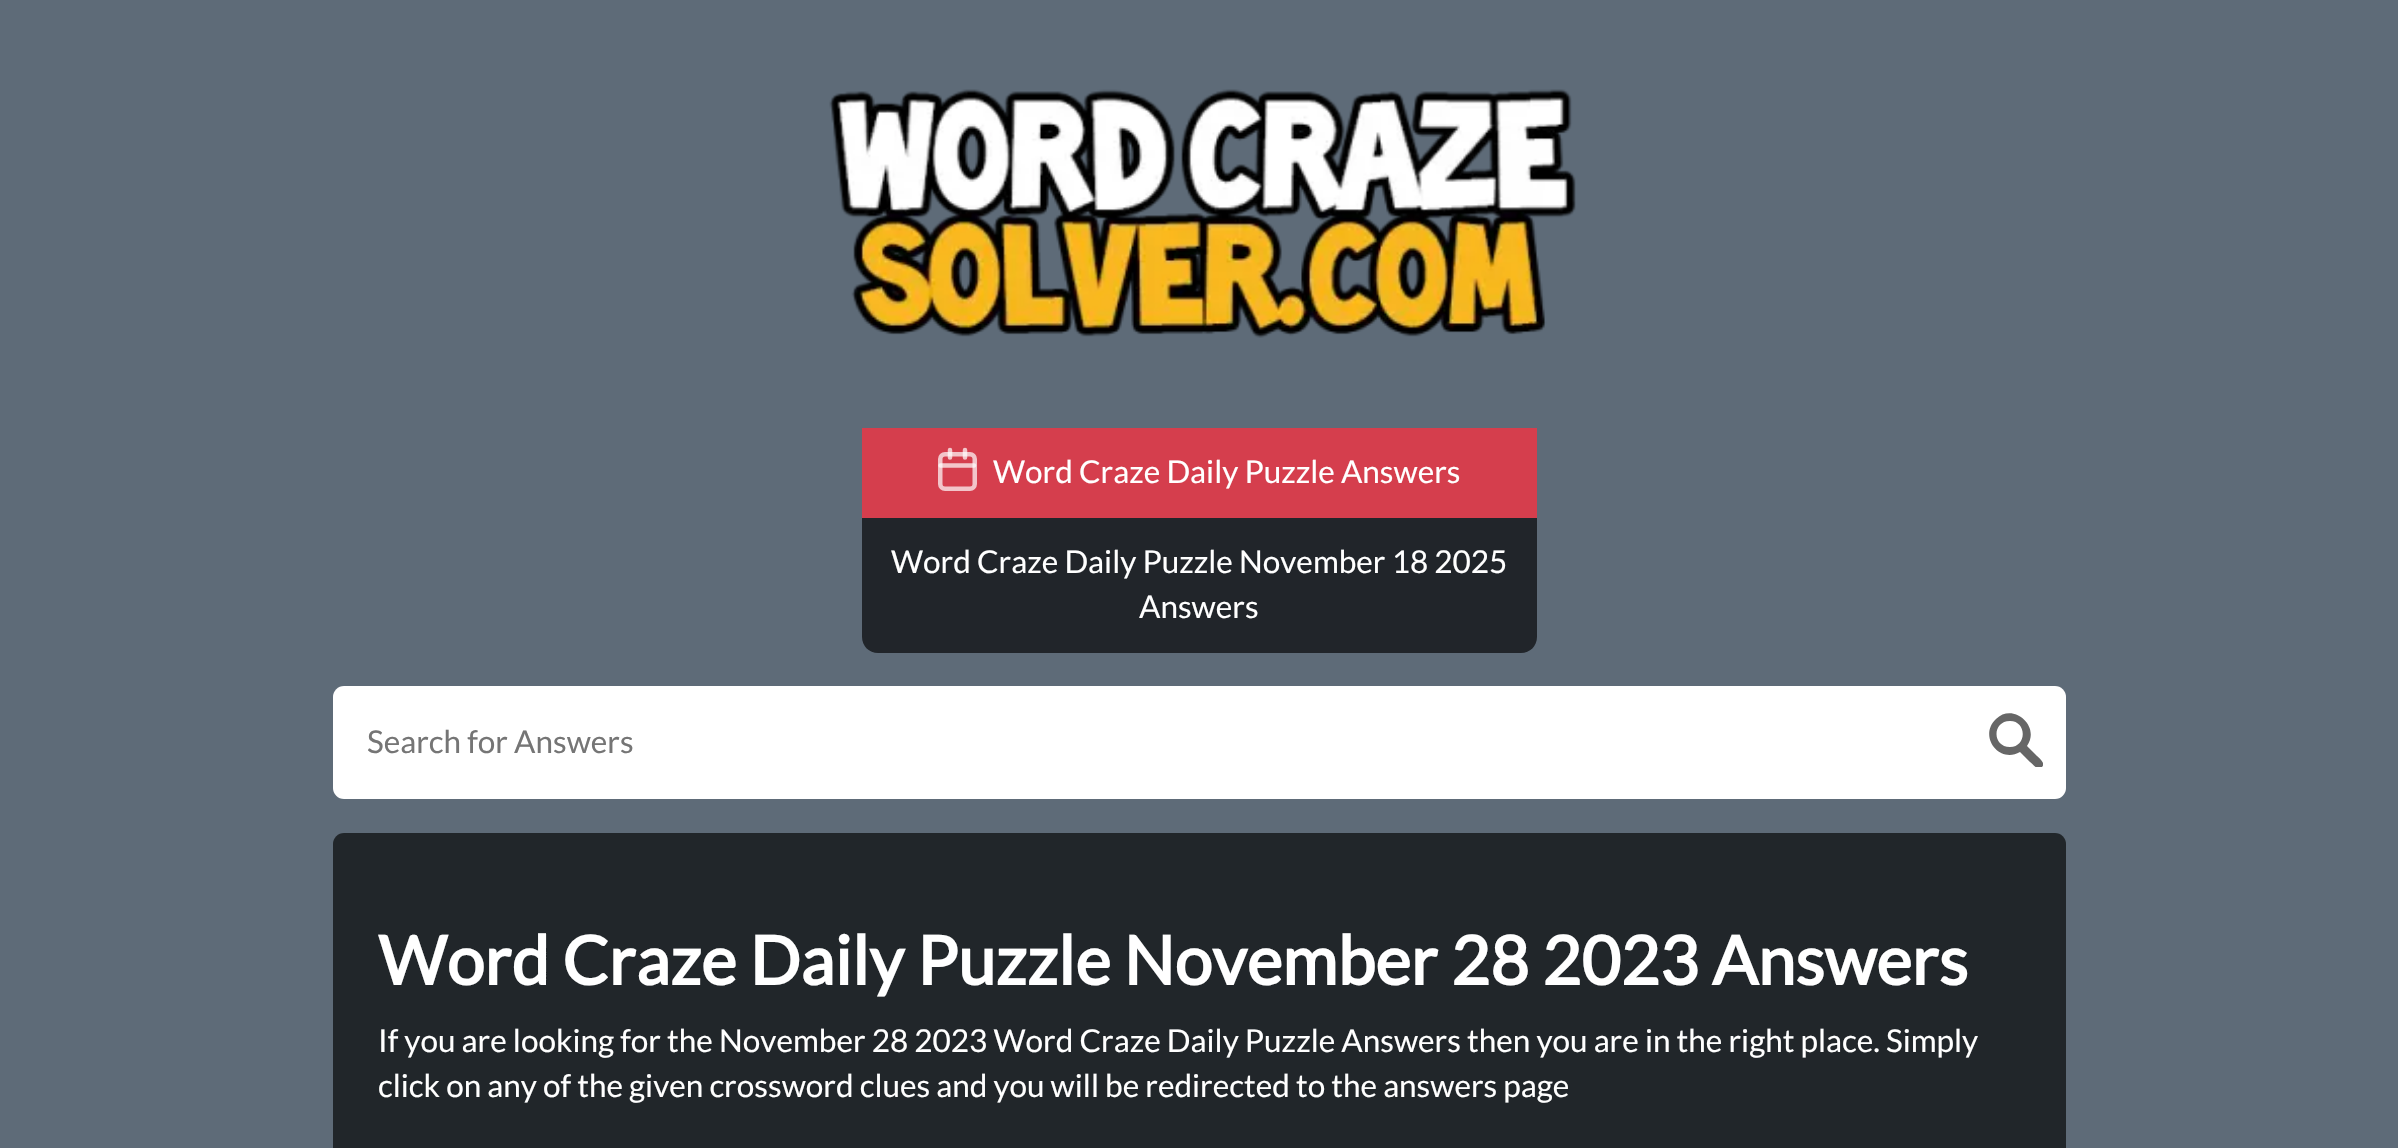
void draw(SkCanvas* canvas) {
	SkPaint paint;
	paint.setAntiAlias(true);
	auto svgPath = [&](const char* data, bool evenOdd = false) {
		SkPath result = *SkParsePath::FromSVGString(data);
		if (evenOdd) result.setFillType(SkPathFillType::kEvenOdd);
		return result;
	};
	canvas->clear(0xff5e6b78);
	canvas->drawImageRect(SkImages::DeferredFromEncodedData(SkData::MakeFromFileName("img1.png")), SkRect::MakeXYWH(829, 89, 747, 249), SkSamplingOptions());
	paint.setColor(0xffd53e4d);
	canvas->drawRect(SkRect::MakeXYWH(862, 428, 675, 90), paint);
	paint.setStroke(true);
	paint.setStrokeWidth(4.5);
	paint.setColor(0xfff2c5ca);
	canvas->drawRoundRect(SkRect::MakeXYWH(940.25, 454.25, 34.5, 34.5), 4.75, 4.75, paint);
	paint.setStrokeCap(SkPaint::kRound_Cap);
	paint.setStrokeJoin(SkPaint::kRound_Join);
	paint.setColor(0xb3ffffff);
	canvas->drawPath(svgPath("M965 450V457.5M950 450V457.5M940.5 465.5H974"), paint);
	SkFont f1(fontMgr->matchFamilyStyle("Lato", SkFontStyle::Normal()), 31.5);
	f1.setSubpixel(true);
	paint.setStroke(false);
	paint.setColor(0xffffffff);
	canvas->drawString("Word Craze Daily Puzzle Answers", 993, 483, f1, paint);
	paint.setColor(0xff21252a);
	canvas->drawPath(svgPath("M862 518H1537V637C1537 646 1530 653 1521 653H878C869 653 862 646 862 637Z"), paint);
	paint.setColor(0xffffffff);
	canvas->drawString("Word Craze Daily Puzzle November 18 2025", 891, 573, f1, paint);
	canvas->drawString("Answers", 1139, 618, f1, paint);
	canvas->drawRoundRect(SkRect::MakeXYWH(333, 686, 1733, 113), 11, 11, paint);
	paint.setColor(0xff757575);
	canvas->drawString("Search for Answers", 367, 753, f1, paint);
	canvas->save();
	canvas->clipRect(SkRect::MakeXYWH(1989, 713, 54, 54));
	paint.setColor(0xff666666);
	canvas->drawPath(svgPath("M2027 746C2041 726 2013 702 1996 719C1978 736 1999 764 2020 752L2030 762C2033 764 2037 771 2042 767C2046 763 2039 758 2037 756ZM2010 747C1992 747 1992 721 2010 721C2027 721 2027 747 2010 747Z"), paint);
	canvas->restore();
	paint.setColor(0xff21262a);
	canvas->drawRoundRect(SkRect::MakeXYWH(333, 833, 1733, 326), 11, 11, paint);
	SkFont f2(fontMgr->matchFamilyStyle("Lato", SkFontStyle::Bold()), 67.5);
	f2.setSubpixel(true);
	paint.setColor(0xffffffff);
	canvas->drawString("Word Craze Daily Puzzle November 28 2023 Answers", 378, 985, f2, paint);
	canvas->drawString("If you are looking for the November 28 2023 Word Craze Daily Puzzle Answers then you are in the right place. Simply", 378, 1052, f1, paint);
	canvas->drawString("click on any of the given crossword clues and you will be redirected to the answers page", 378, 1097, f1, paint);
}
